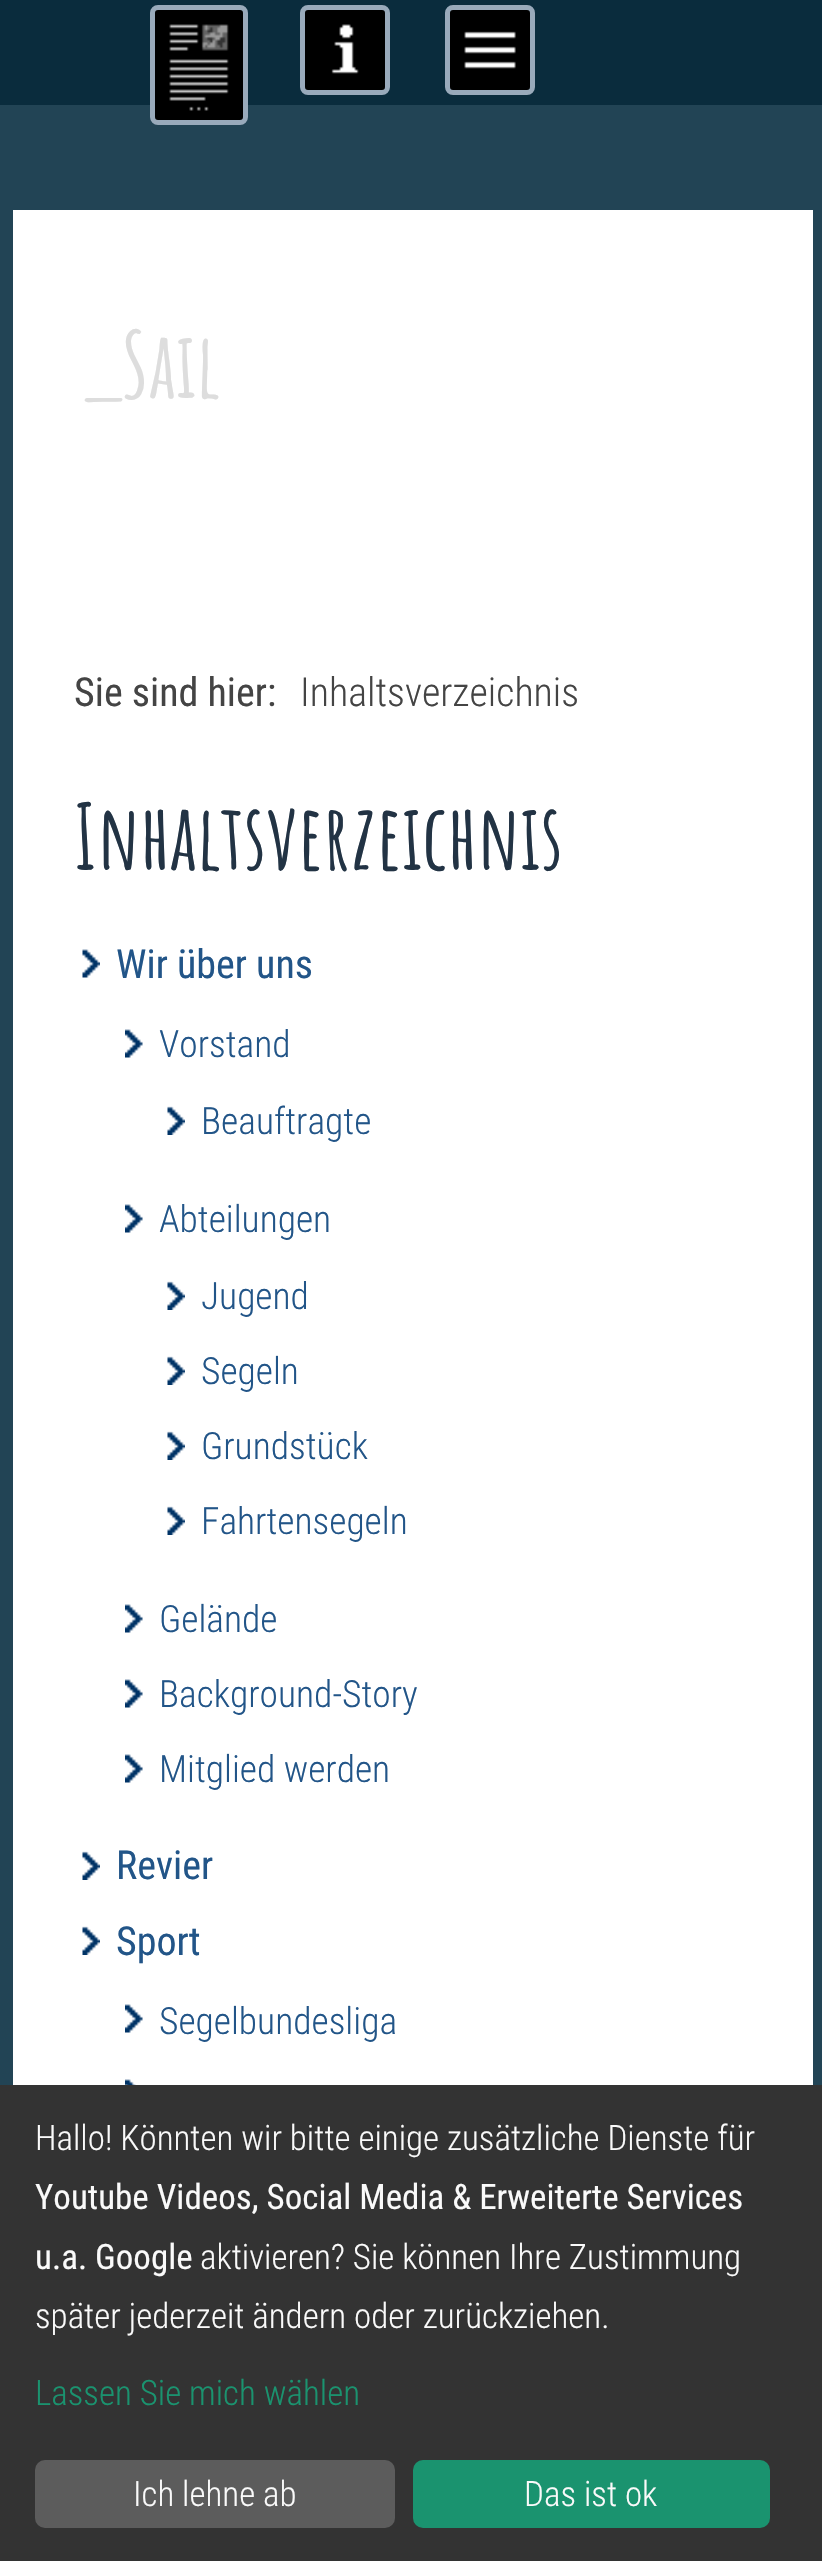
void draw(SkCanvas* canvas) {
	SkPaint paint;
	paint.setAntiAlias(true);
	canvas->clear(0xff224455);
	paint.setColor(0xff0a2c3d);
	canvas->drawRect(SkRect::MakeXYWH(0, 0, 822, 105), paint);
	paint.setColor(0xff000000);
	canvas->drawRoundRect(SkRect::MakeXYWH(152.5, 7.5, 93, 115), 5.5, 5.5, paint);
	paint.setStroke(true);
	paint.setStrokeWidth(5);
	paint.setColor(0xff99aabb);
	canvas->drawRoundRect(SkRect::MakeXYWH(152.5, 7.5, 93, 115), 5.5, 5.5, paint);
	canvas->drawImageRect(SkImages::DeferredFromEncodedData(SkData::MakeFromFileName("img1.png")), SkRect::MakeXYWH(169, 24, 60, 87), SkSamplingOptions());
	paint.setStroke(false);
	paint.setColor(0xff000000);
	canvas->drawRoundRect(SkRect::MakeXYWH(302.5, 7.5, 85, 85), 5.5, 5.5, paint);
	paint.setStroke(true);
	paint.setColor(0xff99aabb);
	canvas->drawRoundRect(SkRect::MakeXYWH(302.5, 7.5, 85, 85), 5.5, 5.5, paint);
	canvas->drawImageRect(SkImages::DeferredFromEncodedData(SkData::MakeFromFileName("img2.png")), SkRect::MakeXYWH(331, 24, 28, 50), SkSamplingOptions());
	paint.setStroke(false);
	paint.setColor(0xff000000);
	canvas->drawRoundRect(SkRect::MakeXYWH(447.5, 7.5, 85, 85), 5.5, 5.5, paint);
	paint.setStroke(true);
	paint.setColor(0xff99aabb);
	canvas->drawRoundRect(SkRect::MakeXYWH(447.5, 7.5, 85, 85), 5.5, 5.5, paint);
	canvas->drawImageRect(SkImages::DeferredFromEncodedData(SkData::MakeFromFileName("img3.png")), SkRect::MakeXYWH(464, 31, 52, 38), SkSamplingOptions());
	paint.setStroke(false);
	paint.setColor(0xffffffff);
	canvas->drawRect(SkRect::MakeXYWH(13, 210, 800, 1875), paint);
	SkFont f1(fontMgr->matchFamilyStyle("Amatic SC", SkFontStyle::Bold()), 90);
	f1.setSubpixel(true);
	paint.setColor(0xffdddddd);
	canvas->drawString("_Sail", 74, 398, f1, paint);
	SkFont f2(fontMgr->matchFamilyStyle("Roboto Condensed", SkFontStyle::Normal()), 40);
	f2.setSubpixel(true);
	paint.setColor(0xff444444);
	canvas->drawString("Sie sind hier:", 74, 706, f2, paint);
	SkFont f3(fontMgr->matchFamilyStyle("Roboto Condensed", SkFontStyle(300, SkFontStyle::kNormal_Width, SkFontStyle::kUpright_Slant)), 40);
	f3.setSubpixel(true);
	canvas->drawString("Inhaltsverzeichnis", 300, 706, f3, paint);
	paint.setColor(0xff223344);
	canvas->drawString("Inhaltsverzeichnis", 74, 870, f1, paint);
	canvas->drawImageRect(SkImages::DeferredFromEncodedData(SkData::MakeFromFileName("img4.png")), SkRect::MakeXYWH(82, 949, 18, 29), SkSamplingOptions());
	paint.setColor(0xff225588);
	canvas->drawString("Wir über uns", 116, 978, f2, paint);
	canvas->drawImageRect(SkImages::DeferredFromEncodedData(SkData::MakeFromFileName("img5.png")), SkRect::MakeXYWH(125, 1029, 18, 29), SkSamplingOptions());
	SkFont f4(fontMgr->matchFamilyStyle("Roboto Condensed", SkFontStyle(300, SkFontStyle::kNormal_Width, SkFontStyle::kUpright_Slant)), 37.5);
	f4.setSubpixel(true);
	canvas->drawString("Vorstand", 159, 1057, f4, paint);
	canvas->drawImageRect(SkImages::DeferredFromEncodedData(SkData::MakeFromFileName("img6.png")), SkRect::MakeXYWH(167, 1106, 18, 29), SkSamplingOptions());
	canvas->drawString("Beauftragte", 201, 1134, f4, paint);
	canvas->drawImageRect(SkImages::DeferredFromEncodedData(SkData::MakeFromFileName("img5.png")), SkRect::MakeXYWH(125, 1204, 18, 29), SkSamplingOptions());
	canvas->drawString("Abteilungen", 159, 1232, f4, paint);
	canvas->drawImageRect(SkImages::DeferredFromEncodedData(SkData::MakeFromFileName("img6.png")), SkRect::MakeXYWH(167, 1281, 18, 29), SkSamplingOptions());
	canvas->drawString("Jugend", 201, 1309, f4, paint);
	canvas->drawImageRect(SkImages::DeferredFromEncodedData(SkData::MakeFromFileName("img6.png")), SkRect::MakeXYWH(167, 1356, 18, 29), SkSamplingOptions());
	canvas->drawString("Segeln", 201, 1384, f4, paint);
	canvas->drawImageRect(SkImages::DeferredFromEncodedData(SkData::MakeFromFileName("img6.png")), SkRect::MakeXYWH(167, 1431, 18, 29), SkSamplingOptions());
	canvas->drawString("Grundstück", 201, 1459, f4, paint);
	canvas->drawImageRect(SkImages::DeferredFromEncodedData(SkData::MakeFromFileName("img6.png")), SkRect::MakeXYWH(167, 1506, 18, 29), SkSamplingOptions());
	canvas->drawString("Fahrtensegeln", 201, 1534, f4, paint);
	canvas->drawImageRect(SkImages::DeferredFromEncodedData(SkData::MakeFromFileName("img5.png")), SkRect::MakeXYWH(125, 1604, 18, 29), SkSamplingOptions());
	canvas->drawString("Gelände", 159, 1632, f4, paint);
	canvas->drawImageRect(SkImages::DeferredFromEncodedData(SkData::MakeFromFileName("img5.png")), SkRect::MakeXYWH(125, 1679, 18, 29), SkSamplingOptions());
	canvas->drawString("Background-Story", 159, 1707, f4, paint);
	canvas->drawImageRect(SkImages::DeferredFromEncodedData(SkData::MakeFromFileName("img5.png")), SkRect::MakeXYWH(125, 1754, 18, 29), SkSamplingOptions());
	canvas->drawString("Mitglied werden", 159, 1782, f4, paint);
	canvas->drawImageRect(SkImages::DeferredFromEncodedData(SkData::MakeFromFileName("img7.png")), SkRect::MakeXYWH(82, 1851, 18, 29), SkSamplingOptions());
	canvas->drawString("Revier", 116, 1879, f2, paint);
	canvas->drawImageRect(SkImages::DeferredFromEncodedData(SkData::MakeFromFileName("img6.png")), SkRect::MakeXYWH(82, 1926, 18, 29), SkSamplingOptions());
	canvas->drawString("Sport", 116, 1955, f2, paint);
	canvas->drawImageRect(SkImages::DeferredFromEncodedData(SkData::MakeFromFileName("img5.png")), SkRect::MakeXYWH(125, 2004, 18, 29), SkSamplingOptions());
	canvas->drawString("Segelbundesliga", 159, 2034, f4, paint);
	canvas->drawImageRect(SkImages::DeferredFromEncodedData(SkData::MakeFromFileName("img8.png")), SkRect::MakeXYWH(125, 2079, 11, 6), SkSamplingOptions());
	paint.setColor(0xff333333);
	canvas->drawRect(SkRect::MakeXYWH(0, 2085, 822, 476), paint);
	SkFont f5(fontMgr->matchFamilyStyle("Roboto Condensed", SkFontStyle(300, SkFontStyle::kNormal_Width, SkFontStyle::kUpright_Slant)), 35);
	f5.setSubpixel(true);
	paint.setColor(0xfffafafa);
	canvas->drawString("Hallo! Könnten wir bitte einige zusätzliche Dienste für", 35, 2150, f5, paint);
	SkFont f6(fontMgr->matchFamilyStyle("Roboto Condensed", SkFontStyle::Normal()), 35);
	f6.setSubpixel(true);
	canvas->drawString("Youtube Videos, Social Media & Erweiterte Services", 35, 2209, f6, paint);
	canvas->drawString("u.a. Google", 35, 2269, f6, paint);
	canvas->drawString("aktivieren? Sie können Ihre Zustimmung", 200, 2269, f5, paint);
	canvas->drawString("später jederzeit ändern oder zurückziehen.", 35, 2328, f5, paint);
	paint.setColor(0xff1a936f);
	canvas->drawString("Lassen Sie mich wählen", 35, 2405, f5, paint);
	paint.setColor(0xff5c5c5c);
	canvas->drawRoundRect(SkRect::MakeXYWH(35, 2460, 360, 68), 10, 10, paint);
	paint.setColor(0xfffafafa);
	canvas->drawString("Ich lehne ab", 133, 2506, f5, paint);
	paint.setColor(0xff1a936f);
	canvas->drawRoundRect(SkRect::MakeXYWH(413, 2460, 357, 68), 10, 10, paint);
	paint.setColor(0xfffafafa);
	canvas->drawString("Das ist ok", 524, 2506, f5, paint);
}
